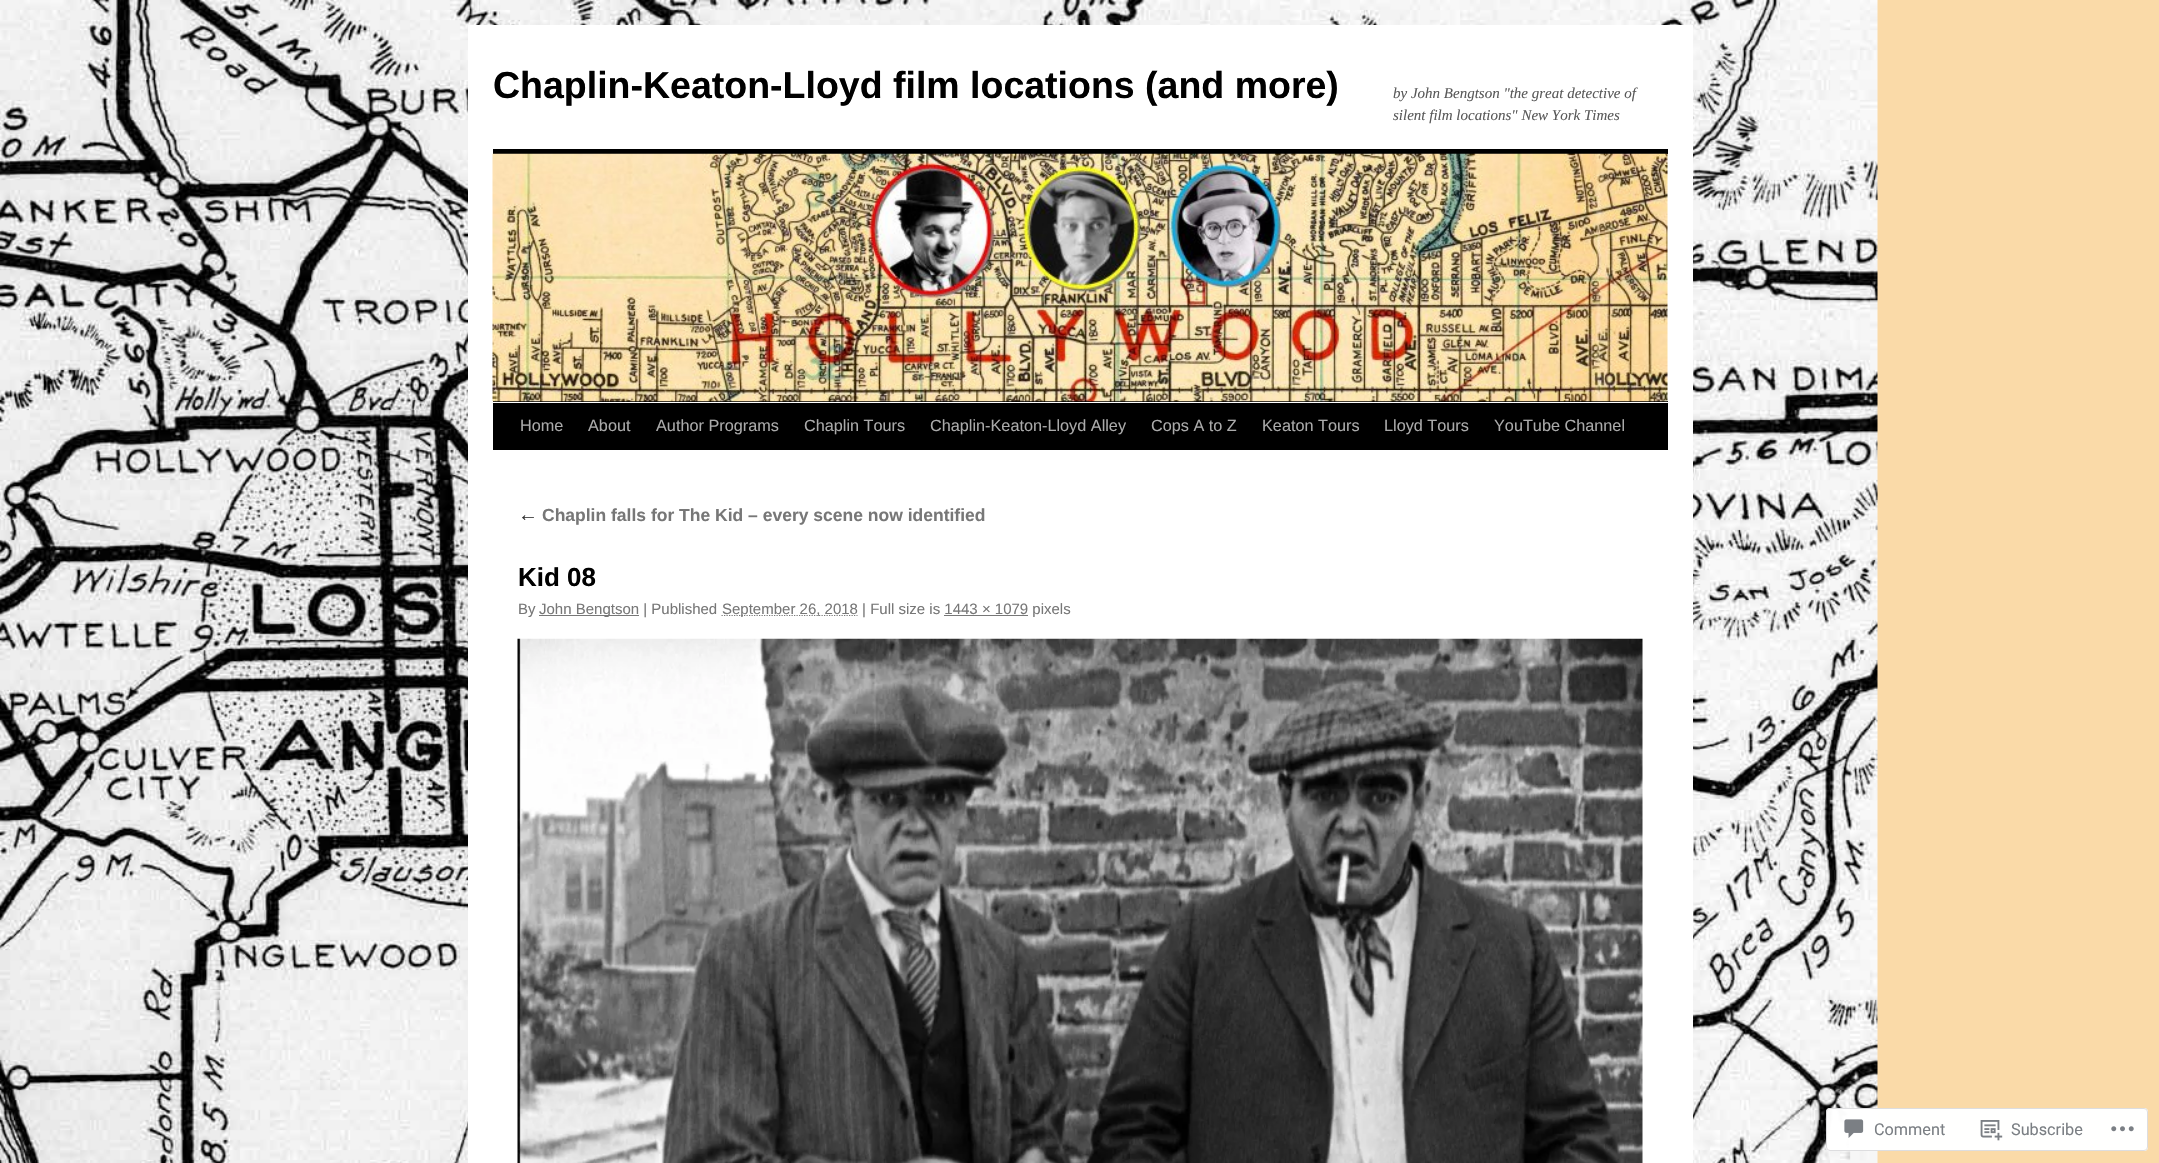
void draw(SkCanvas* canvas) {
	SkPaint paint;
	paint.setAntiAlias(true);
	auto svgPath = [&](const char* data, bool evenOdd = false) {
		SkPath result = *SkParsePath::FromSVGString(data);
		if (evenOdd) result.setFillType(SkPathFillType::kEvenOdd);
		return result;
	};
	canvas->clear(0xfffadaa8);
	canvas->drawImageRect(SkImages::DeferredFromEncodedData(SkData::MakeFromFileName("img1.png")), SkRect::MakeXYWH(0, 0, 1878, 1163), SkSamplingOptions());
	paint.setColor(0xffffffff);
	canvas->drawRect(SkRect::MakeXYWH(468, 25, 1225, 1138), paint);
	SkFont f1(fontMgr->matchFamilyStyle("Liberation Sans", SkFontStyle::Bold()), 37.5);
	f1.setSubpixel(true);
	paint.setColor(0xff000000);
	canvas->drawString("Chaplin-Keaton-Lloyd film locations (and more)", 493, 98, f1, paint);
	SkFont f2(fontMgr->matchFamilyStyle("Liberation Serif", SkFontStyle::Italic()), 15);
	f2.setSubpixel(true);
	paint.setColor(0xff595959);
	canvas->drawString("by John Bengtson \"the great detective of", 1393, 98, f2, paint);
	canvas->drawString("silent film locations\" New York Times", 1393, 120, f2, paint);
	paint.setColor(0xff000000);
	canvas->drawRect(SkRect::MakeXYWH(493, 149, 1175, 5), paint);
	canvas->drawRect(SkRect::MakeXYWH(493, 401, 1175, 1), paint);
	canvas->drawImageRect(SkImages::DeferredFromEncodedData(SkData::MakeFromFileName("img2.png")), SkRect::MakeXYWH(492, 153, 1176, 249), SkSamplingOptions());
	canvas->drawRect(SkRect::MakeXYWH(493, 403, 1175, 47), paint);
	SkFont f3(fontMgr->matchFamilyStyle("Liberation Sans", SkFontStyle::Normal()), 16.25);
	f3.setSubpixel(true);
	paint.setColor(0xffaaaaaa);
	canvas->drawString("Home", 520, 431, f3, paint);
	canvas->drawString("About", 588, 431, f3, paint);
	canvas->drawString("Author Programs", 656, 431, f3, paint);
	canvas->drawString("Chaplin Tours", 804, 431, f3, paint);
	canvas->drawString("Chaplin-Keaton-Lloyd Alley", 930, 431, f3, paint);
	canvas->drawString("Cops A to Z", 1151, 431, f3, paint);
	canvas->drawString("Keaton Tours", 1262, 431, f3, paint);
	canvas->drawString("Lloyd Tours", 1384, 431, f3, paint);
	canvas->drawString("YouTube Channel", 1494, 431, f3, paint);
	SkFont f4(fontMgr->matchFamilyStyle("Liberation Serif", SkFontStyle::Italic()), 20);
	f4.setSubpixel(true);
	paint.setColor(0xff333333);
	canvas->drawString("←", 518, 521, f4, paint);
	SkFont f5(fontMgr->matchFamilyStyle("Liberation Sans", SkFontStyle::Bold()), 17.5);
	f5.setSubpixel(true);
	paint.setColor(0xff777777);
	canvas->drawString("Chaplin falls for The Kid – every scene now identified", 542, 521, f5, paint);
	SkFont f6(fontMgr->matchFamilyStyle("Liberation Sans", SkFontStyle::Bold()), 26);
	f6.setSubpixel(true);
	paint.setColor(0xff000000);
	canvas->drawString("Kid 08", 518, 586, f6, paint);
	SkFont f7(fontMgr->matchFamilyStyle("Liberation Sans", SkFontStyle::Normal()), 15);
	f7.setSubpixel(true);
	paint.setColor(0xff777777);
	canvas->drawString("By", 518, 614, f7, paint);
	canvas->drawRect(SkRect::MakeXYWH(539, 615, 100, 1), paint);
	canvas->drawString("John Bengtson | Published", 539, 614, f7, paint);
	paint.setStroke(true);
	paint.setStrokeWidth(1.2);
	paint.setPathEffect(SkDashPathEffect::Make({{1.25f, 1.25f}}, 0));
	canvas->drawPath(svgPath("M721.5 615.5H857.5"), paint);
	paint.setPathEffect(nullptr);
	paint.setStroke(false);
	canvas->drawString("September 26, 2018 | Full size is 1443 × 1079 pixels", 722, 614, f7, paint);
	canvas->drawRect(SkRect::MakeXYWH(944, 615, 84, 1), paint);
	canvas->drawImageRect(SkImages::DeferredFromEncodedData(SkData::MakeFromFileName("img3.png")), SkRect::MakeXYWH(517, 638, 1126, 525), SkSamplingOptions());
	paint.setColor(0xfaffffff);
	canvas->drawRoundRect(SkRect::MakeXYWH(1826, 1108, 322, 43), 4, 4, paint);
	paint.setStroke(true);
	paint.setStrokeWidth(1);
	paint.setColor(0xfadcdcde);
	canvas->drawRoundRect(SkRect::MakeXYWH(1826.5, 1108.5, 321, 42), 3.5, 3.5, paint);
	canvas->drawImageRect(SkImages::DeferredFromEncodedData(SkData::MakeFromFileName("img4.png")), SkRect::MakeXYWH(1844, 1119, 20, 19), SkSamplingOptions());
	SkFont f8(fontMgr->matchFamilyStyle("Roboto", SkFontStyle::Normal()), 16.25);
	f8.setSubpixel(true);
	paint.setStroke(false);
	paint.setColor(0xff7b7f84);
	canvas->drawString("Comment", 1874, 1135, f8, paint);
	canvas->drawImageRect(SkImages::DeferredFromEncodedData(SkData::MakeFromFileName("img5.png")), SkRect::MakeXYWH(1980, 1120, 23, 21), SkSamplingOptions());
	canvas->drawString("Subscribe", 2011, 1135, f8, paint);
	canvas->drawImageRect(SkImages::DeferredFromEncodedData(SkData::MakeFromFileName("img6.png")), SkRect::MakeXYWH(2111, 1126, 23, 6), SkSamplingOptions());
}
